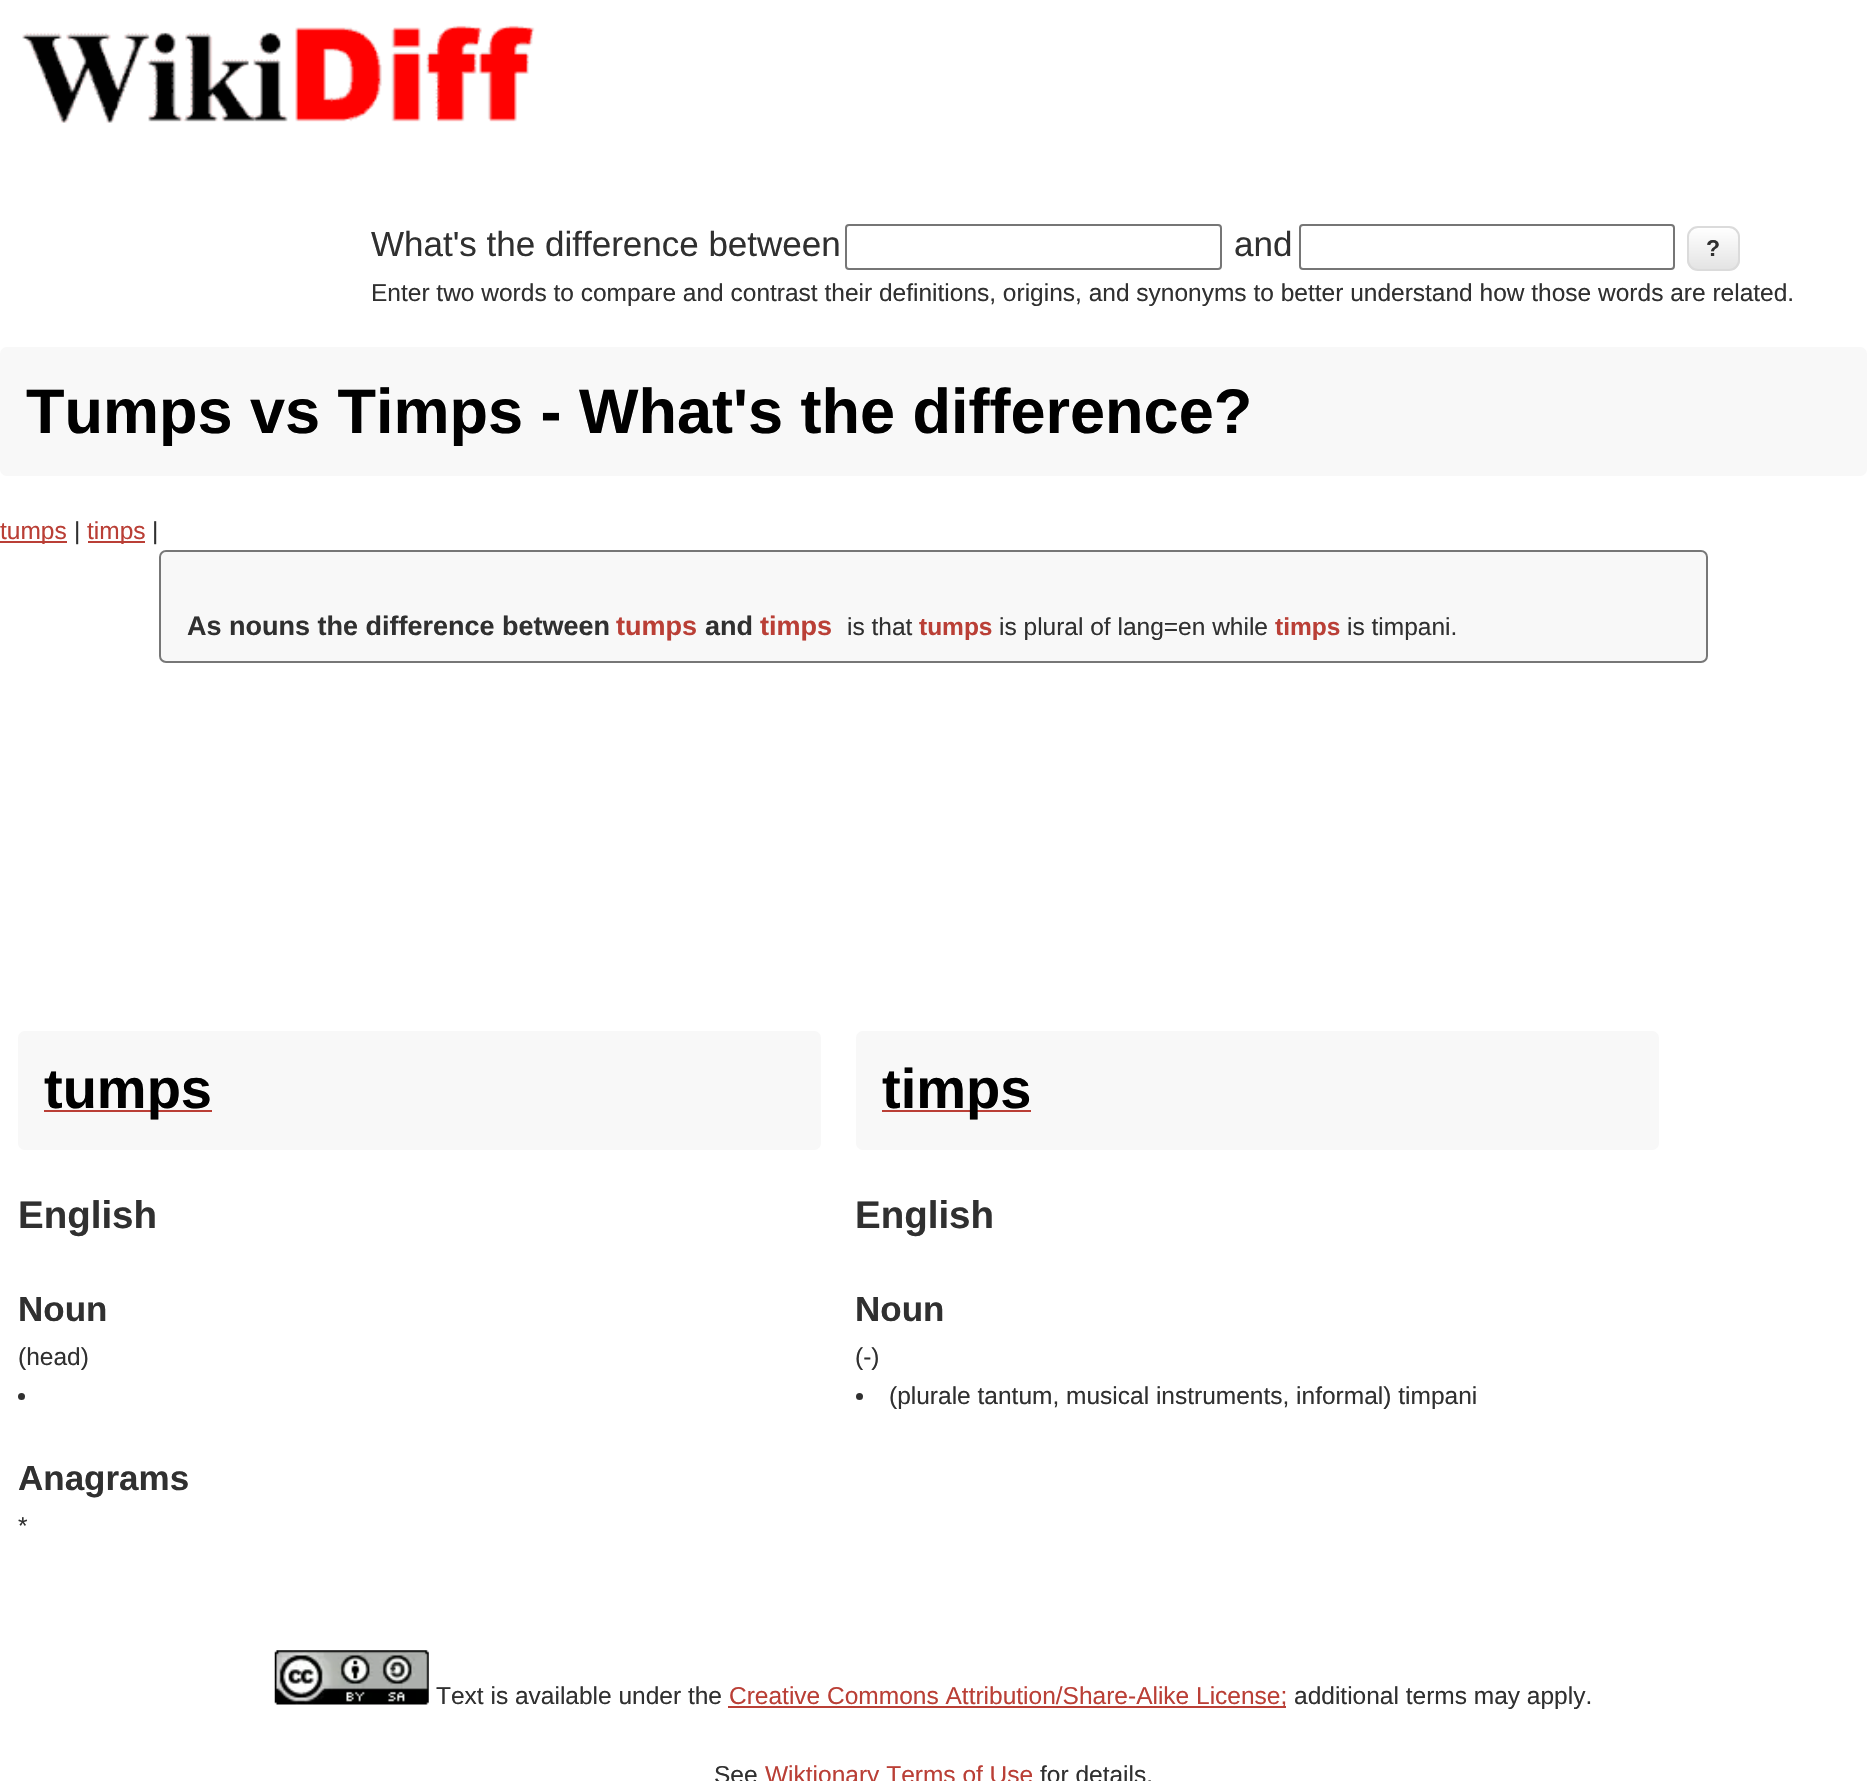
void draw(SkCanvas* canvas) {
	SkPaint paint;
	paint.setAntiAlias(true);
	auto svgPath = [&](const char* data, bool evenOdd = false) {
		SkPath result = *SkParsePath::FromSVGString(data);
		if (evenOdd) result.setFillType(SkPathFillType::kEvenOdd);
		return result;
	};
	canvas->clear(0xffffffff);
	canvas->drawImageRect(SkImages::DeferredFromEncodedData(SkData::MakeFromFileName("img1.png")), SkRect::MakeXYWH(22, 25, 513, 98), SkSamplingOptions());
	SkFont f1(fontMgr->matchFamilyStyle("Liberation Sans", SkFontStyle::Normal()), 35);
	f1.setSubpixel(true);
	paint.setColor(0xff303030);
	canvas->drawString("What's the difference between", 371, 256, f1, paint);
	paint.setStroke(true);
	paint.setStrokeWidth(2);
	paint.setColor(0xff767676);
	canvas->drawRoundRect(SkRect::MakeXYWH(846, 225, 375, 44), 3, 3, paint);
	paint.setStroke(false);
	paint.setColor(0xff303030);
	canvas->drawString("and", 1234, 256, f1, paint);
	paint.setStroke(true);
	paint.setColor(0xff767676);
	canvas->drawRoundRect(SkRect::MakeXYWH(1300, 225, 374, 44), 3, 3, paint);
	canvas->save();
	canvas->clipPath(svgPath("M1698 226H1729C1735 226 1740 231 1740 237V260C1740 266 1735 271 1729 271H1698C1692 271 1687 266 1687 260V237C1687 231 1692 226 1698 226Z"), true);
	paint.setStroke(false);
	{
		const SkColor colors[] = {0xffffffff, 0xffe3e3e3};
		const float stops[] = {0, 1};
		const SkPoint ends[] = {{1713, 228}, {1713, 270}};
		paint.setShader(SkGradientShader::MakeLinear(ends, colors, stops, 2, SkTileMode::kClamp));
		paint.setAlpha(255);
	}
	canvas->drawRect(SkRect::MakeXYWH(1687, 228, 53, 42), paint);
	canvas->restore();
	paint.setStroke(true);
	paint.setShader(nullptr);
	paint.setColor(0xffdbdbdb);
	canvas->drawRoundRect(SkRect::MakeXYWH(1688, 227, 51, 43), 10, 10, paint);
	SkFont f2(fontMgr->matchFamilyStyle("Liberation Sans", SkFontStyle::Bold()), 23);
	f2.setSubpixel(true);
	paint.setStroke(false);
	paint.setColor(0xff303030);
	canvas->drawString("?", 1706, 256, f2, paint);
	SkFont f3(fontMgr->matchFamilyStyle("Liberation Sans", SkFontStyle::Normal()), 24.5);
	f3.setSubpixel(true);
	canvas->drawString("Enter two words to compare and contrast their definitions, origins, and synonyms to better understand how those words are related.", 371, 301, f3, paint);
	paint.setColor(0xfff8f8f8);
	canvas->drawRoundRect(SkRect::MakeXYWH(0, 347, 1867, 129), 7, 7, paint);
	SkFont f4(fontMgr->matchFamilyStyle("Liberation Sans", SkFontStyle::Bold()), 63);
	f4.setSubpixel(true);
	paint.setColor(0xff000000);
	canvas->drawString("Tumps vs Timps - What's the difference?", 26, 433, f4, paint);
	paint.setColor(0xffba3f36);
	canvas->drawRect(SkRect::MakeXYWH(0, 541, 67, 2), paint);
	canvas->drawString("tumps", 0, 539, f3, paint);
	paint.setColor(0xff303030);
	canvas->drawString("|", 74, 539, f3, paint);
	paint.setColor(0xffba3f36);
	canvas->drawRect(SkRect::MakeXYWH(88, 541, 57, 2), paint);
	canvas->drawString("timps", 87, 539, f3, paint);
	paint.setColor(0xff303030);
	canvas->drawString("|", 152, 539, f3, paint);
	paint.setColor(0xfff8f8f8);
	canvas->drawRoundRect(SkRect::MakeXYWH(160, 551, 1547, 111), 6, 6, paint);
	paint.setStroke(true);
	paint.setColor(0xff777777);
	canvas->drawRoundRect(SkRect::MakeXYWH(160, 551, 1547, 111), 6, 6, paint);
	SkFont f5(fontMgr->matchFamilyStyle("Liberation Sans", SkFontStyle::Bold()), 27);
	f5.setSubpixel(true);
	paint.setStroke(false);
	paint.setColor(0xff303030);
	canvas->drawString("As nouns the difference between", 187, 635, f5, paint);
	paint.setColor(0xffba3f36);
	canvas->drawString("tumps", 616, 635, f5, paint);
	paint.setColor(0xff303030);
	canvas->drawString("and", 705, 635, f5, paint);
	paint.setColor(0xffba3f36);
	canvas->drawString("timps", 760, 635, f5, paint);
	paint.setColor(0xff303030);
	canvas->drawString("is that", 847, 635, f3, paint);
	SkFont f6(fontMgr->matchFamilyStyle("Liberation Sans", SkFontStyle::Bold()), 24.5);
	f6.setSubpixel(true);
	paint.setColor(0xffba3f36);
	canvas->drawString("tumps", 919, 635, f6, paint);
	paint.setColor(0xff303030);
	canvas->drawString("is plural of lang=en while", 999, 635, f3, paint);
	paint.setColor(0xffba3f36);
	canvas->drawString("timps", 1275, 635, f6, paint);
	paint.setColor(0xff303030);
	canvas->drawString("is timpani.", 1347, 635, f3, paint);
	paint.setColor(0xfff8f8f8);
	canvas->drawRoundRect(SkRect::MakeXYWH(18, 1031, 803, 119), 7, 7, paint);
	paint.setColor(0xffba3f36);
	canvas->drawRect(SkRect::MakeXYWH(44, 1110, 168, 2), paint);
	SkFont f7(fontMgr->matchFamilyStyle("Liberation Sans", SkFontStyle::Bold()), 56);
	f7.setSubpixel(true);
	paint.setColor(0xff000000);
	canvas->drawString("tumps", 44, 1108, f7, paint);
	SkFont f8(fontMgr->matchFamilyStyle("Liberation Sans", SkFontStyle::Bold()), 38.5);
	f8.setSubpixel(true);
	paint.setColor(0xff303030);
	canvas->drawString("English", 18, 1228, f8, paint);
	SkFont f9(fontMgr->matchFamilyStyle("Liberation Sans", SkFontStyle::Bold()), 35);
	f9.setSubpixel(true);
	canvas->drawString("Noun", 18, 1321, f9, paint);
	canvas->drawString("(head)", 18, 1365, f3, paint);
	canvas->drawCircle(21.5, 1396.5, 3.5, paint);
	canvas->drawString("Anagrams", 18, 1490, f9, paint);
	canvas->drawString("*", 18, 1534, f3, paint);
	paint.setColor(0xfff8f8f8);
	canvas->drawRoundRect(SkRect::MakeXYWH(856, 1031, 803, 119), 7, 7, paint);
	paint.setColor(0xffba3f36);
	canvas->drawRect(SkRect::MakeXYWH(882, 1110, 149, 2), paint);
	paint.setColor(0xff000000);
	canvas->drawString("timps", 882, 1108, f7, paint);
	paint.setColor(0xff303030);
	canvas->drawString("English", 855, 1228, f8, paint);
	canvas->drawString("Noun", 855, 1321, f9, paint);
	canvas->drawString("(-)", 855, 1365, f3, paint);
	canvas->drawCircle(859.5, 1396.5, 3.5, paint);
	canvas->drawString("(plurale tantum, musical instruments, informal) timpani", 889, 1404, f3, paint);
	canvas->drawImageRect(SkImages::DeferredFromEncodedData(SkData::MakeFromFileName("img2.png")), SkRect::MakeXYWH(274, 1650, 155, 55), SkSamplingOptions());
	canvas->drawString("Text is available under the", 436, 1704, f3, paint);
	paint.setColor(0xffba3f36);
	canvas->drawRect(SkRect::MakeXYWH(728, 1706, 558, 2), paint);
	canvas->drawString("Creative Commons Attribution/Share-Alike License;", 729, 1704, f3, paint);
	paint.setColor(0xff303030);
	canvas->drawString("additional terms may apply.", 1294, 1704, f3, paint);
	canvas->drawString("See", 714, 1783, f3, paint);
	paint.setColor(0xffba3f36);
	canvas->drawString("Wiktionary Terms of Use", 765, 1783, f3, paint);
	paint.setColor(0xff303030);
	canvas->drawString("for details.", 1040, 1783, f3, paint);
}
